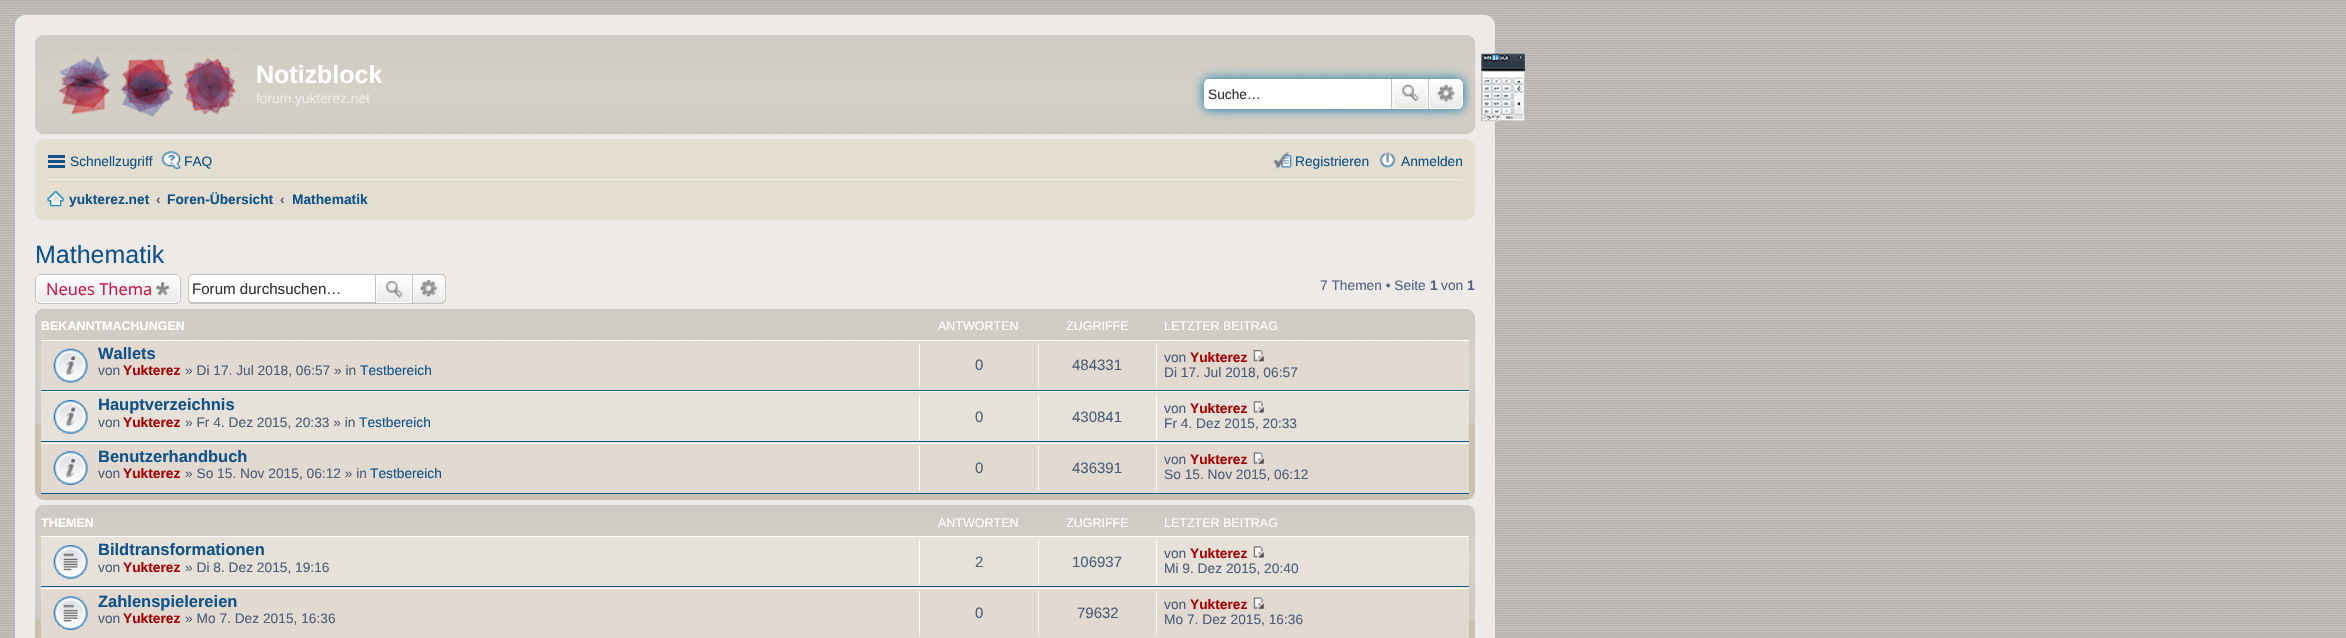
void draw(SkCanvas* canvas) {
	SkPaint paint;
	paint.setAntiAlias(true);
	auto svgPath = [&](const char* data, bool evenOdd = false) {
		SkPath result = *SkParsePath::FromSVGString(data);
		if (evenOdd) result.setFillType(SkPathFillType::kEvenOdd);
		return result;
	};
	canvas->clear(0xffffffff);
	canvas->drawImageRect(SkImages::DeferredFromEncodedData(SkData::MakeFromFileName("img1.png")), SkRect::MakeXYWH(0, 0, 2346, 638), SkSamplingOptions());
	paint.setColor(0xffeeeae8);
	canvas->drawRoundRect(SkRect::MakeXYWH(15.5, 15.5, 1479, 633), 9.5, 9.5, paint);
	paint.setStroke(true);
	paint.setStrokeWidth(1);
	paint.setColor(0xffe6e9ed);
	canvas->drawRoundRect(SkRect::MakeXYWH(15.5, 15.5, 1479, 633), 9.5, 9.5, paint);
	paint.setStroke(false);
	paint.setColor(0xffcbc1b1);
	canvas->drawRoundRect(SkRect::MakeXYWH(35, 35, 1440, 99), 9, 9, paint);
	canvas->drawImageRect(SkImages::DeferredFromEncodedData(SkData::MakeFromFileName("img2.png")), SkRect::MakeXYWH(35, 35, 1440, 99), SkSamplingOptions());
	canvas->drawImageRect(SkImages::DeferredFromEncodedData(SkData::MakeFromFileName("img3.png")), SkRect::MakeXYWH(54, 54, 186, 63), SkSamplingOptions());
	SkFont f1(fontMgr->matchFamilyStyle("Liberation Sans", SkFontStyle::Bold()), 25);
	f1.setSubpixel(true);
	paint.setColor(0xffffffff);
	canvas->drawString("Notizblock", 256, 83, f1, paint);
	SkFont f2(fontMgr->matchFamilyStyle("Liberation Sans", SkFontStyle::Normal()), 13.75);
	f2.setSubpixel(true);
	paint.setColor(0xffeeeae8);
	canvas->drawString("forum.yukterez.net", 256, 103, f2, paint);
	paint.setColor(0xff0075b0);
	paint.setMaskFilter(SkMaskFilter::MakeBlur(kNormal_SkBlurStyle, 6));
	canvas->drawRoundRect(SkRect::MakeXYWH(1204, 79, 259, 30), 5, 5, paint);
	paint.setMaskFilter(nullptr);
	paint.setColor(0xffffffff);
	canvas->drawPath(svgPath("M1209 79H1391V109H1209C1206 109 1204 107 1204 104V84C1204 81 1206 79 1209 79Z"), paint);
	paint.setColor(0xff333333);
	canvas->drawString("Suche…", 1208, 99, f2, paint);
	{
		const SkColor colors[] = {0xffffffff, 0xffe9e9e9};
		const float stops[] = {0, 1};
		const SkPoint ends[] = {{1410, 79}, {1410, 109}};
		paint.setShader(SkGradientShader::MakeLinear(ends, colors, stops, 2, SkTileMode::kClamp));
		paint.setAlpha(255);
	}
	canvas->drawRect(SkRect::MakeXYWH(1392, 79, 35, 30), paint);
	paint.setStroke(true);
	paint.setShader(nullptr);
	paint.setColor(0xffffffff);
	canvas->drawRect(SkRect::MakeXYWH(1393.5, 79.5, 34, 29), paint);
	paint.setStroke(false);
	paint.setColor(0xffc7c3bf);
	canvas->drawRect(SkRect::MakeXYWH(1428, 79, 1, 30), paint);
	canvas->drawRect(SkRect::MakeXYWH(1391, 79, 1, 30), paint);
	canvas->drawImageRect(SkImages::DeferredFromEncodedData(SkData::MakeFromFileName("img4.png")), SkRect::MakeXYWH(1402, 85, 17, 17), SkSamplingOptions());
	{
		const SkColor colors[] = {0xffffffff, 0xffe9e9e9};
		const float stops[] = {0, 1};
		const SkPoint ends[] = {{1446, 79}, {1446, 109}};
		paint.setShader(SkGradientShader::MakeLinear(ends, colors, stops, 2, SkTileMode::kClamp));
		paint.setAlpha(255);
	}
	canvas->drawPath(svgPath("M1429.5 79.5H1458C1460.5 79.5 1462.5 81.5 1462.5 84V104C1462.5 106.5 1460.5 108.5 1458 108.5H1429.5Z"), paint);
	paint.setStroke(true);
	paint.setShader(nullptr);
	paint.setColor(0xffffffff);
	canvas->drawPath(svgPath("M1429.5 79.5H1458C1460.5 79.5 1462.5 81.5 1462.5 84V104C1462.5 106.5 1460.5 108.5 1458 108.5H1429.5Z"), paint);
	canvas->drawImageRect(SkImages::DeferredFromEncodedData(SkData::MakeFromFileName("img5.png")), SkRect::MakeXYWH(1437, 85, 18, 17), SkSamplingOptions());
	canvas->drawImageRect(SkImages::DeferredFromEncodedData(SkData::MakeFromFileName("img6.png")), SkRect::MakeXYWH(1481, 53, 44, 69), SkSamplingOptions());
	paint.setStroke(false);
	paint.setColor(0xffe4ded0);
	canvas->drawRoundRect(SkRect::MakeXYWH(35, 139, 1440, 81), 9, 9, paint);
	paint.setColor(0xff105289);
	canvas->drawRect(SkRect::MakeXYWH(48, 155, 17, 3), paint);
	canvas->drawRect(SkRect::MakeXYWH(48, 160, 17, 3), paint);
	canvas->drawRect(SkRect::MakeXYWH(48, 165, 17, 3), paint);
	canvas->drawString("Schnellzugriff", 70, 166, f2, paint);
	canvas->drawImageRect(SkImages::DeferredFromEncodedData(SkData::MakeFromFileName("img7.png")), SkRect::MakeXYWH(161, 151, 21, 18), SkSamplingOptions());
	canvas->drawString("FAQ", 184, 166, f2, paint);
	canvas->drawImageRect(SkImages::DeferredFromEncodedData(SkData::MakeFromFileName("img8.png")), SkRect::MakeXYWH(1273, 152, 19, 17), SkSamplingOptions());
	canvas->drawString("Registrieren", 1295, 166, f2, paint);
	canvas->drawImageRect(SkImages::DeferredFromEncodedData(SkData::MakeFromFileName("img9.png")), SkRect::MakeXYWH(1379, 152, 17, 16), SkSamplingOptions());
	canvas->drawString("Anmelden", 1401, 166, f2, paint);
	paint.setColor(0xffeeeae8);
	canvas->drawRect(SkRect::MakeXYWH(48, 179, 1415, 1), paint);
	canvas->drawImageRect(SkImages::DeferredFromEncodedData(SkData::MakeFromFileName("img10.png")), SkRect::MakeXYWH(47, 191, 17, 16), SkSamplingOptions());
	SkFont f3(fontMgr->matchFamilyStyle("Liberation Sans", SkFontStyle::Bold()), 13.75);
	f3.setSubpixel(true);
	paint.setColor(0xff105289);
	canvas->drawString("yukterez.net", 69, 204, f3, paint);
	paint.setColor(0xff536482);
	canvas->drawString("‹", 156, 204, f3, paint);
	paint.setColor(0xff105289);
	canvas->drawString("Foren-Übersicht", 167, 204, f3, paint);
	paint.setColor(0xff536482);
	canvas->drawString("‹", 280, 204, f3, paint);
	canvas->save();
	canvas->clipRect(SkRect::MakeXYWH(293, 184, 75, 30));
	paint.setColor(0xff105289);
	canvas->drawString("Mathematik", 292, 204, f3, paint);
	canvas->restore();
	SkFont f4(fontMgr->matchFamilyStyle("Liberation Sans", SkFontStyle::Normal()), 25);
	f4.setSubpixel(true);
	canvas->drawString("Mathematik", 35, 263, f4, paint);
	canvas->save();
	canvas->clipPath(svgPath("M40 274H176C179 274 181 276 181 279V299C181 302 179 304 176 304H40C37 304 35 302 35 299V279C35 276 37 274 40 274Z"), true);
	{
		const SkColor colors[] = {0xffffffff, 0xffe9e9e9};
		const float stops[] = {0, 1};
		const SkPoint ends[] = {{108, 275}, {108, 303}};
		paint.setShader(SkGradientShader::MakeLinear(ends, colors, stops, 2, SkTileMode::kClamp));
		paint.setAlpha(255);
	}
	canvas->drawRect(SkRect::MakeXYWH(35, 275, 146, 28), paint);
	canvas->restore();
	paint.setStroke(true);
	paint.setShader(nullptr);
	paint.setColor(0xffffffff);
	canvas->drawRoundRect(SkRect::MakeXYWH(36.5, 275.5, 143, 27), 3.5, 3.5, paint);
	paint.setColor(0xffc7c3bf);
	canvas->drawRoundRect(SkRect::MakeXYWH(35.5, 274.5, 145, 29), 4.5, 4.5, paint);
	SkFont f5(fontMgr->matchFamilyStyle("Open Sans", SkFontStyle::Normal()), 16.5);
	f5.setSubpixel(true);
	paint.setStroke(false);
	paint.setColor(0xffd31141);
	canvas->drawString("Neues Thema", 46, 295, f5, paint);
	canvas->drawImageRect(SkImages::DeferredFromEncodedData(SkData::MakeFromFileName("img11.png")), SkRect::MakeXYWH(156, 282, 14, 14), SkSamplingOptions());
	paint.setColor(0xffffffff);
	canvas->drawPath(svgPath("M193 275H375V303H193C191 303 189 301 189 299V279C189 277 191 275 193 275Z"), paint);
	paint.setColor(0xffc7c3bf);
	canvas->drawPath(svgPath("M192 274H375V304H192C190 304 188 302 188 299V279C188 276 190 274 192 274ZM192 275H375V302H192C190 302 189 301 189 299V279C189 277 190 275 192 275Z", true), paint);
	SkFont f6(fontMgr->matchFamilyStyle("Liberation Sans", SkFontStyle::Normal()), 15.1);
	f6.setSubpixel(true);
	paint.setColor(0xff333333);
	canvas->drawString("Forum durchsuchen…", 192, 294, f6, paint);
	{
		const SkColor colors[] = {0xffffffff, 0xffe9e9e9};
		const float stops[] = {0, 1};
		const SkPoint ends[] = {{394, 275}, {394, 303}};
		paint.setShader(SkGradientShader::MakeLinear(ends, colors, stops, 2, SkTileMode::kClamp));
		paint.setAlpha(255);
	}
	canvas->drawRect(SkRect::MakeXYWH(377, 275, 35, 28), paint);
	paint.setStroke(true);
	paint.setShader(nullptr);
	paint.setColor(0xffffffff);
	canvas->drawRect(SkRect::MakeXYWH(376.5, 275.5, 34, 27), paint);
	paint.setColor(0xffc7c3bf);
	canvas->drawRect(SkRect::MakeXYWH(375.5, 274.5, 37, 29), paint);
	canvas->drawImageRect(SkImages::DeferredFromEncodedData(SkData::MakeFromFileName("img12.png")), SkRect::MakeXYWH(386, 281, 17, 17), SkSamplingOptions());
	paint.setStroke(false);
	{
		const SkColor colors[] = {0xffffffff, 0xffe9e9e9};
		const float stops[] = {0, 1};
		const SkPoint ends[] = {{429, 275}, {429, 303}};
		paint.setShader(SkGradientShader::MakeLinear(ends, colors, stops, 2, SkTileMode::kClamp));
		paint.setAlpha(255);
	}
	canvas->drawPath(svgPath("M413.5 275.5H441C443 275.5 444.5 277 444.5 279V299C444.5 301 443 302.5 441 302.5H413.5Z"), paint);
	paint.setStroke(true);
	paint.setShader(nullptr);
	paint.setColor(0xffffffff);
	canvas->drawPath(svgPath("M413.5 275.5H441C443 275.5 444.5 277 444.5 279V299C444.5 301 443 302.5 441 302.5H413.5Z"), paint);
	paint.setStroke(false);
	paint.setColor(0xffc7c3bf);
	canvas->drawPath(svgPath("M412.5 274H441C444 274 446 276 446 279V299C446 301.5 444 304 441 304H412.5ZM412.5 275H441C443.5 275 445 276.5 445 279V299C445 301 443.5 302.5 441 302.5H412.5Z", true), paint);
	canvas->drawImageRect(SkImages::DeferredFromEncodedData(SkData::MakeFromFileName("img13.png")), SkRect::MakeXYWH(420, 280, 18, 17), SkSamplingOptions());
	paint.setColor(0xff536482);
	canvas->drawString("7 Themen • Seite", 1320, 290, f2, paint);
	canvas->drawString("1", 1430, 290, f3, paint);
	canvas->drawString("von", 1441, 290, f2, paint);
	canvas->drawString("1", 1467, 290, f3, paint);
	paint.setColor(0xffcbc1b1);
	canvas->drawRoundRect(SkRect::MakeXYWH(35, 309, 1440, 191), 9, 9, paint);
	canvas->drawImageRect(SkImages::DeferredFromEncodedData(SkData::MakeFromFileName("img14.png")), SkRect::MakeXYWH(35, 309, 1440, 115), SkSamplingOptions());
	SkFont f7(fontMgr->matchFamilyStyle("Liberation Sans", SkFontStyle::Bold()), 12.5);
	f7.setSubpixel(true);
	paint.setColor(0xffffffff);
	canvas->drawString("BEKANNTMACHUNGEN", 41, 330, f7, paint);
	SkFont f8(fontMgr->matchFamilyStyle("Liberation Sans", SkFontStyle::Normal()), 12.5);
	f8.setSubpixel(true);
	canvas->drawString("ANTWORTEN", 938, 330, f8, paint);
	canvas->drawString("ZUGRIFFE", 1066, 330, f8, paint);
	canvas->drawString("LETZTER BEITRAG", 1164, 330, f8, paint);
	paint.setColor(0xffe2dad1);
	canvas->drawRect(SkRect::MakeXYWH(41, 341, 1428, 49), paint);
	paint.setColor(0xffffffff);
	canvas->drawRect(SkRect::MakeXYWH(41, 340, 1428, 1), paint);
	paint.setColor(0xff00608f);
	canvas->drawRect(SkRect::MakeXYWH(41, 390, 1428, 1), paint);
	canvas->drawImageRect(SkImages::DeferredFromEncodedData(SkData::MakeFromFileName("img15.png")), SkRect::MakeXYWH(53, 348, 35, 35), SkSamplingOptions());
	SkFont f9(fontMgr->matchFamilyStyle("Liberation Sans", SkFontStyle::Bold()), 16.5);
	f9.setSubpixel(true);
	paint.setColor(0xff105289);
	canvas->drawString("Wallets", 98, 359, f9, paint);
	paint.setColor(0xff4c5d77);
	canvas->drawString("von", 98, 375, f2, paint);
	paint.setColor(0xffaa0000);
	canvas->drawString("Yukterez", 123, 375, f3, paint);
	paint.setColor(0xff4c5d77);
	canvas->drawString("» Di 17. Jul 2018, 06:57 » in", 185, 375, f2, paint);
	paint.setColor(0xff105289);
	canvas->drawString("Testbereich", 360, 375, f2, paint);
	paint.setColor(0xffffffff);
	canvas->drawRect(SkRect::MakeXYWH(919, 344, 1, 44), paint);
	SkFont f10(fontMgr->matchFamilyStyle("Liberation Sans", SkFontStyle::Normal()), 15);
	f10.setSubpixel(true);
	paint.setColor(0xff4c5d77);
	canvas->drawString("0", 975, 370, f10, paint);
	paint.setColor(0xffffffff);
	canvas->drawRect(SkRect::MakeXYWH(1038, 344, 1, 44), paint);
	paint.setColor(0xff4c5d77);
	canvas->drawString("484331", 1072, 370, f10, paint);
	paint.setColor(0xffffffff);
	canvas->drawRect(SkRect::MakeXYWH(1156, 344, 1, 44), paint);
	paint.setColor(0xff4c5d77);
	canvas->drawString("von", 1164, 362, f2, paint);
	paint.setColor(0xffaa0000);
	canvas->drawString("Yukterez", 1190, 362, f3, paint);
	canvas->drawImageRect(SkImages::DeferredFromEncodedData(SkData::MakeFromFileName("img16.png")), SkRect::MakeXYWH(1253, 350, 11, 12), SkSamplingOptions());
	paint.setColor(0xff4c5d77);
	canvas->drawString("Di 17. Jul 2018, 06:57", 1164, 377, f2, paint);
	paint.setColor(0xffe7e2d9);
	canvas->drawRect(SkRect::MakeXYWH(41, 392, 1428, 51), paint);
	paint.setColor(0xffffffff);
	canvas->drawRect(SkRect::MakeXYWH(41, 391, 1428, 1), paint);
	paint.setColor(0xff00608f);
	canvas->drawRect(SkRect::MakeXYWH(41, 441, 1428, 1), paint);
	canvas->drawImageRect(SkImages::DeferredFromEncodedData(SkData::MakeFromFileName("img17.png")), SkRect::MakeXYWH(53, 400, 35, 34), SkSamplingOptions());
	paint.setColor(0xff105289);
	canvas->drawString("Hauptverzeichnis", 98, 410, f9, paint);
	paint.setColor(0xff4c5d77);
	canvas->drawString("von", 98, 427, f2, paint);
	paint.setColor(0xffaa0000);
	canvas->drawString("Yukterez", 123, 427, f3, paint);
	paint.setColor(0xff4c5d77);
	canvas->drawString("» Fr 4. Dez 2015, 20:33 » in", 185, 427, f2, paint);
	paint.setColor(0xff105289);
	canvas->drawString("Testbereich", 359, 427, f2, paint);
	paint.setColor(0xffffffff);
	canvas->drawRect(SkRect::MakeXYWH(919, 395, 1, 44), paint);
	paint.setColor(0xff4c5d77);
	canvas->drawString("0", 975, 422, f10, paint);
	paint.setColor(0xffffffff);
	canvas->drawRect(SkRect::MakeXYWH(1038, 395, 1, 44), paint);
	paint.setColor(0xff4c5d77);
	canvas->drawString("430841", 1072, 422, f10, paint);
	paint.setColor(0xffffffff);
	canvas->drawRect(SkRect::MakeXYWH(1156, 395, 1, 44), paint);
	paint.setColor(0xff4c5d77);
	canvas->drawString("von", 1164, 413, f2, paint);
	paint.setColor(0xffaa0000);
	canvas->drawString("Yukterez", 1190, 413, f3, paint);
	canvas->drawImageRect(SkImages::DeferredFromEncodedData(SkData::MakeFromFileName("img18.png")), SkRect::MakeXYWH(1253, 401, 11, 12), SkSamplingOptions());
	paint.setColor(0xff4c5d77);
	canvas->drawString("Fr 4. Dez 2015, 20:33", 1164, 428, f2, paint);
	paint.setColor(0xffe2dad1);
	canvas->drawRect(SkRect::MakeXYWH(41, 444, 1428, 49), paint);
	paint.setColor(0xffffffff);
	canvas->drawRect(SkRect::MakeXYWH(41, 443, 1428, 1), paint);
	paint.setColor(0xff00608f);
	canvas->drawRect(SkRect::MakeXYWH(41, 493, 1428, 1), paint);
	canvas->drawImageRect(SkImages::DeferredFromEncodedData(SkData::MakeFromFileName("img19.png")), SkRect::MakeXYWH(53, 451, 35, 34), SkSamplingOptions());
	paint.setColor(0xff105289);
	canvas->drawString("Benutzerhandbuch", 98, 462, f9, paint);
	paint.setColor(0xff4c5d77);
	canvas->drawString("von", 98, 478, f2, paint);
	paint.setColor(0xffaa0000);
	canvas->drawString("Yukterez", 123, 478, f3, paint);
	paint.setColor(0xff4c5d77);
	canvas->drawString("» So 15. Nov 2015, 06:12 » in", 185, 478, f2, paint);
	paint.setColor(0xff105289);
	canvas->drawString("Testbereich", 370, 478, f2, paint);
	paint.setColor(0xffffffff);
	canvas->drawRect(SkRect::MakeXYWH(919, 446, 1, 44), paint);
	paint.setColor(0xff4c5d77);
	canvas->drawString("0", 975, 473, f10, paint);
	paint.setColor(0xffffffff);
	canvas->drawRect(SkRect::MakeXYWH(1038, 446, 1, 44), paint);
	paint.setColor(0xff4c5d77);
	canvas->drawString("436391", 1072, 473, f10, paint);
	paint.setColor(0xffffffff);
	canvas->drawRect(SkRect::MakeXYWH(1156, 446, 1, 44), paint);
	paint.setColor(0xff4c5d77);
	canvas->drawString("von", 1164, 464, f2, paint);
	paint.setColor(0xffaa0000);
	canvas->drawString("Yukterez", 1190, 464, f3, paint);
	canvas->drawImageRect(SkImages::DeferredFromEncodedData(SkData::MakeFromFileName("img20.png")), SkRect::MakeXYWH(1253, 452, 11, 12), SkSamplingOptions());
	paint.setColor(0xff4c5d77);
	canvas->drawString("So 15. Nov 2015, 06:12", 1164, 479, f2, paint);
	paint.setColor(0xffcbc1b1);
	canvas->drawRoundRect(SkRect::MakeXYWH(35, 505, 1440, 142), 9, 9, paint);
	canvas->drawImageRect(SkImages::DeferredFromEncodedData(SkData::MakeFromFileName("img21.png")), SkRect::MakeXYWH(35, 505, 1440, 115), SkSamplingOptions());
	paint.setColor(0xffffffff);
	canvas->drawString("THEMEN", 41, 527, f7, paint);
	canvas->drawString("ANTWORTEN", 938, 527, f8, paint);
	canvas->drawString("ZUGRIFFE", 1066, 527, f8, paint);
	canvas->drawString("LETZTER BEITRAG", 1164, 527, f8, paint);
	paint.setColor(0xffe7e2d9);
	canvas->drawRect(SkRect::MakeXYWH(41, 537, 1428, 51), paint);
	paint.setColor(0xffffffff);
	canvas->drawRect(SkRect::MakeXYWH(41, 536, 1428, 1), paint);
	paint.setColor(0xff00608f);
	canvas->drawRect(SkRect::MakeXYWH(41, 586, 1428, 1), paint);
	canvas->drawImageRect(SkImages::DeferredFromEncodedData(SkData::MakeFromFileName("img22.png")), SkRect::MakeXYWH(53, 545, 35, 34), SkSamplingOptions());
	paint.setColor(0xff105289);
	canvas->drawString("Bildtransformationen", 98, 555, f9, paint);
	paint.setColor(0xff4c5d77);
	canvas->drawString("von", 98, 572, f2, paint);
	paint.setColor(0xffaa0000);
	canvas->drawString("Yukterez", 123, 572, f3, paint);
	paint.setColor(0xff4c5d77);
	canvas->drawString("» Di 8. Dez 2015, 19:16", 185, 572, f2, paint);
	paint.setColor(0xffffffff);
	canvas->drawRect(SkRect::MakeXYWH(919, 540, 1, 44), paint);
	paint.setColor(0xff4c5d77);
	canvas->drawString("2", 975, 567, f10, paint);
	paint.setColor(0xffffffff);
	canvas->drawRect(SkRect::MakeXYWH(1038, 540, 1, 44), paint);
	paint.setColor(0xff4c5d77);
	canvas->drawString("106937", 1072, 567, f10, paint);
	paint.setColor(0xffffffff);
	canvas->drawRect(SkRect::MakeXYWH(1156, 540, 1, 44), paint);
	paint.setColor(0xff4c5d77);
	canvas->drawString("von", 1164, 558, f2, paint);
	paint.setColor(0xffaa0000);
	canvas->drawString("Yukterez", 1190, 558, f3, paint);
	canvas->drawImageRect(SkImages::DeferredFromEncodedData(SkData::MakeFromFileName("img18.png")), SkRect::MakeXYWH(1253, 546, 11, 12), SkSamplingOptions());
	paint.setColor(0xff4c5d77);
	canvas->drawString("Mi 9. Dez 2015, 20:40", 1164, 573, f2, paint);
	paint.setColor(0xffe2dad1);
	canvas->drawRect(SkRect::MakeXYWH(41, 589, 1428, 49), paint);
	paint.setColor(0xffffffff);
	canvas->drawRect(SkRect::MakeXYWH(41, 588, 1428, 1), paint);
	canvas->drawImageRect(SkImages::DeferredFromEncodedData(SkData::MakeFromFileName("img23.png")), SkRect::MakeXYWH(53, 596, 35, 34), SkSamplingOptions());
	paint.setColor(0xff105289);
	canvas->drawString("Zahlenspielereien", 98, 607, f9, paint);
	paint.setColor(0xff4c5d77);
	canvas->drawString("von", 98, 623, f2, paint);
	paint.setColor(0xffaa0000);
	canvas->drawString("Yukterez", 123, 623, f3, paint);
	paint.setColor(0xff4c5d77);
	canvas->drawString("» Mo 7. Dez 2015, 16:36", 185, 623, f2, paint);
	paint.setColor(0xffffffff);
	canvas->drawRect(SkRect::MakeXYWH(919, 591, 1, 44), paint);
	paint.setColor(0xff4c5d77);
	canvas->drawString("0", 975, 618, f10, paint);
	paint.setColor(0xffffffff);
	canvas->drawRect(SkRect::MakeXYWH(1038, 591, 1, 44), paint);
	paint.setColor(0xff4c5d77);
	canvas->drawString("79632", 1077, 618, f10, paint);
	paint.setColor(0xffffffff);
	canvas->drawRect(SkRect::MakeXYWH(1156, 591, 1, 44), paint);
	paint.setColor(0xff4c5d77);
	canvas->drawString("von", 1164, 609, f2, paint);
	paint.setColor(0xffaa0000);
	canvas->drawString("Yukterez", 1190, 609, f3, paint);
	canvas->drawImageRect(SkImages::DeferredFromEncodedData(SkData::MakeFromFileName("img20.png")), SkRect::MakeXYWH(1253, 597, 11, 12), SkSamplingOptions());
	paint.setColor(0xff4c5d77);
	canvas->drawString("Mo 7. Dez 2015, 16:36", 1164, 624, f2, paint);
}
